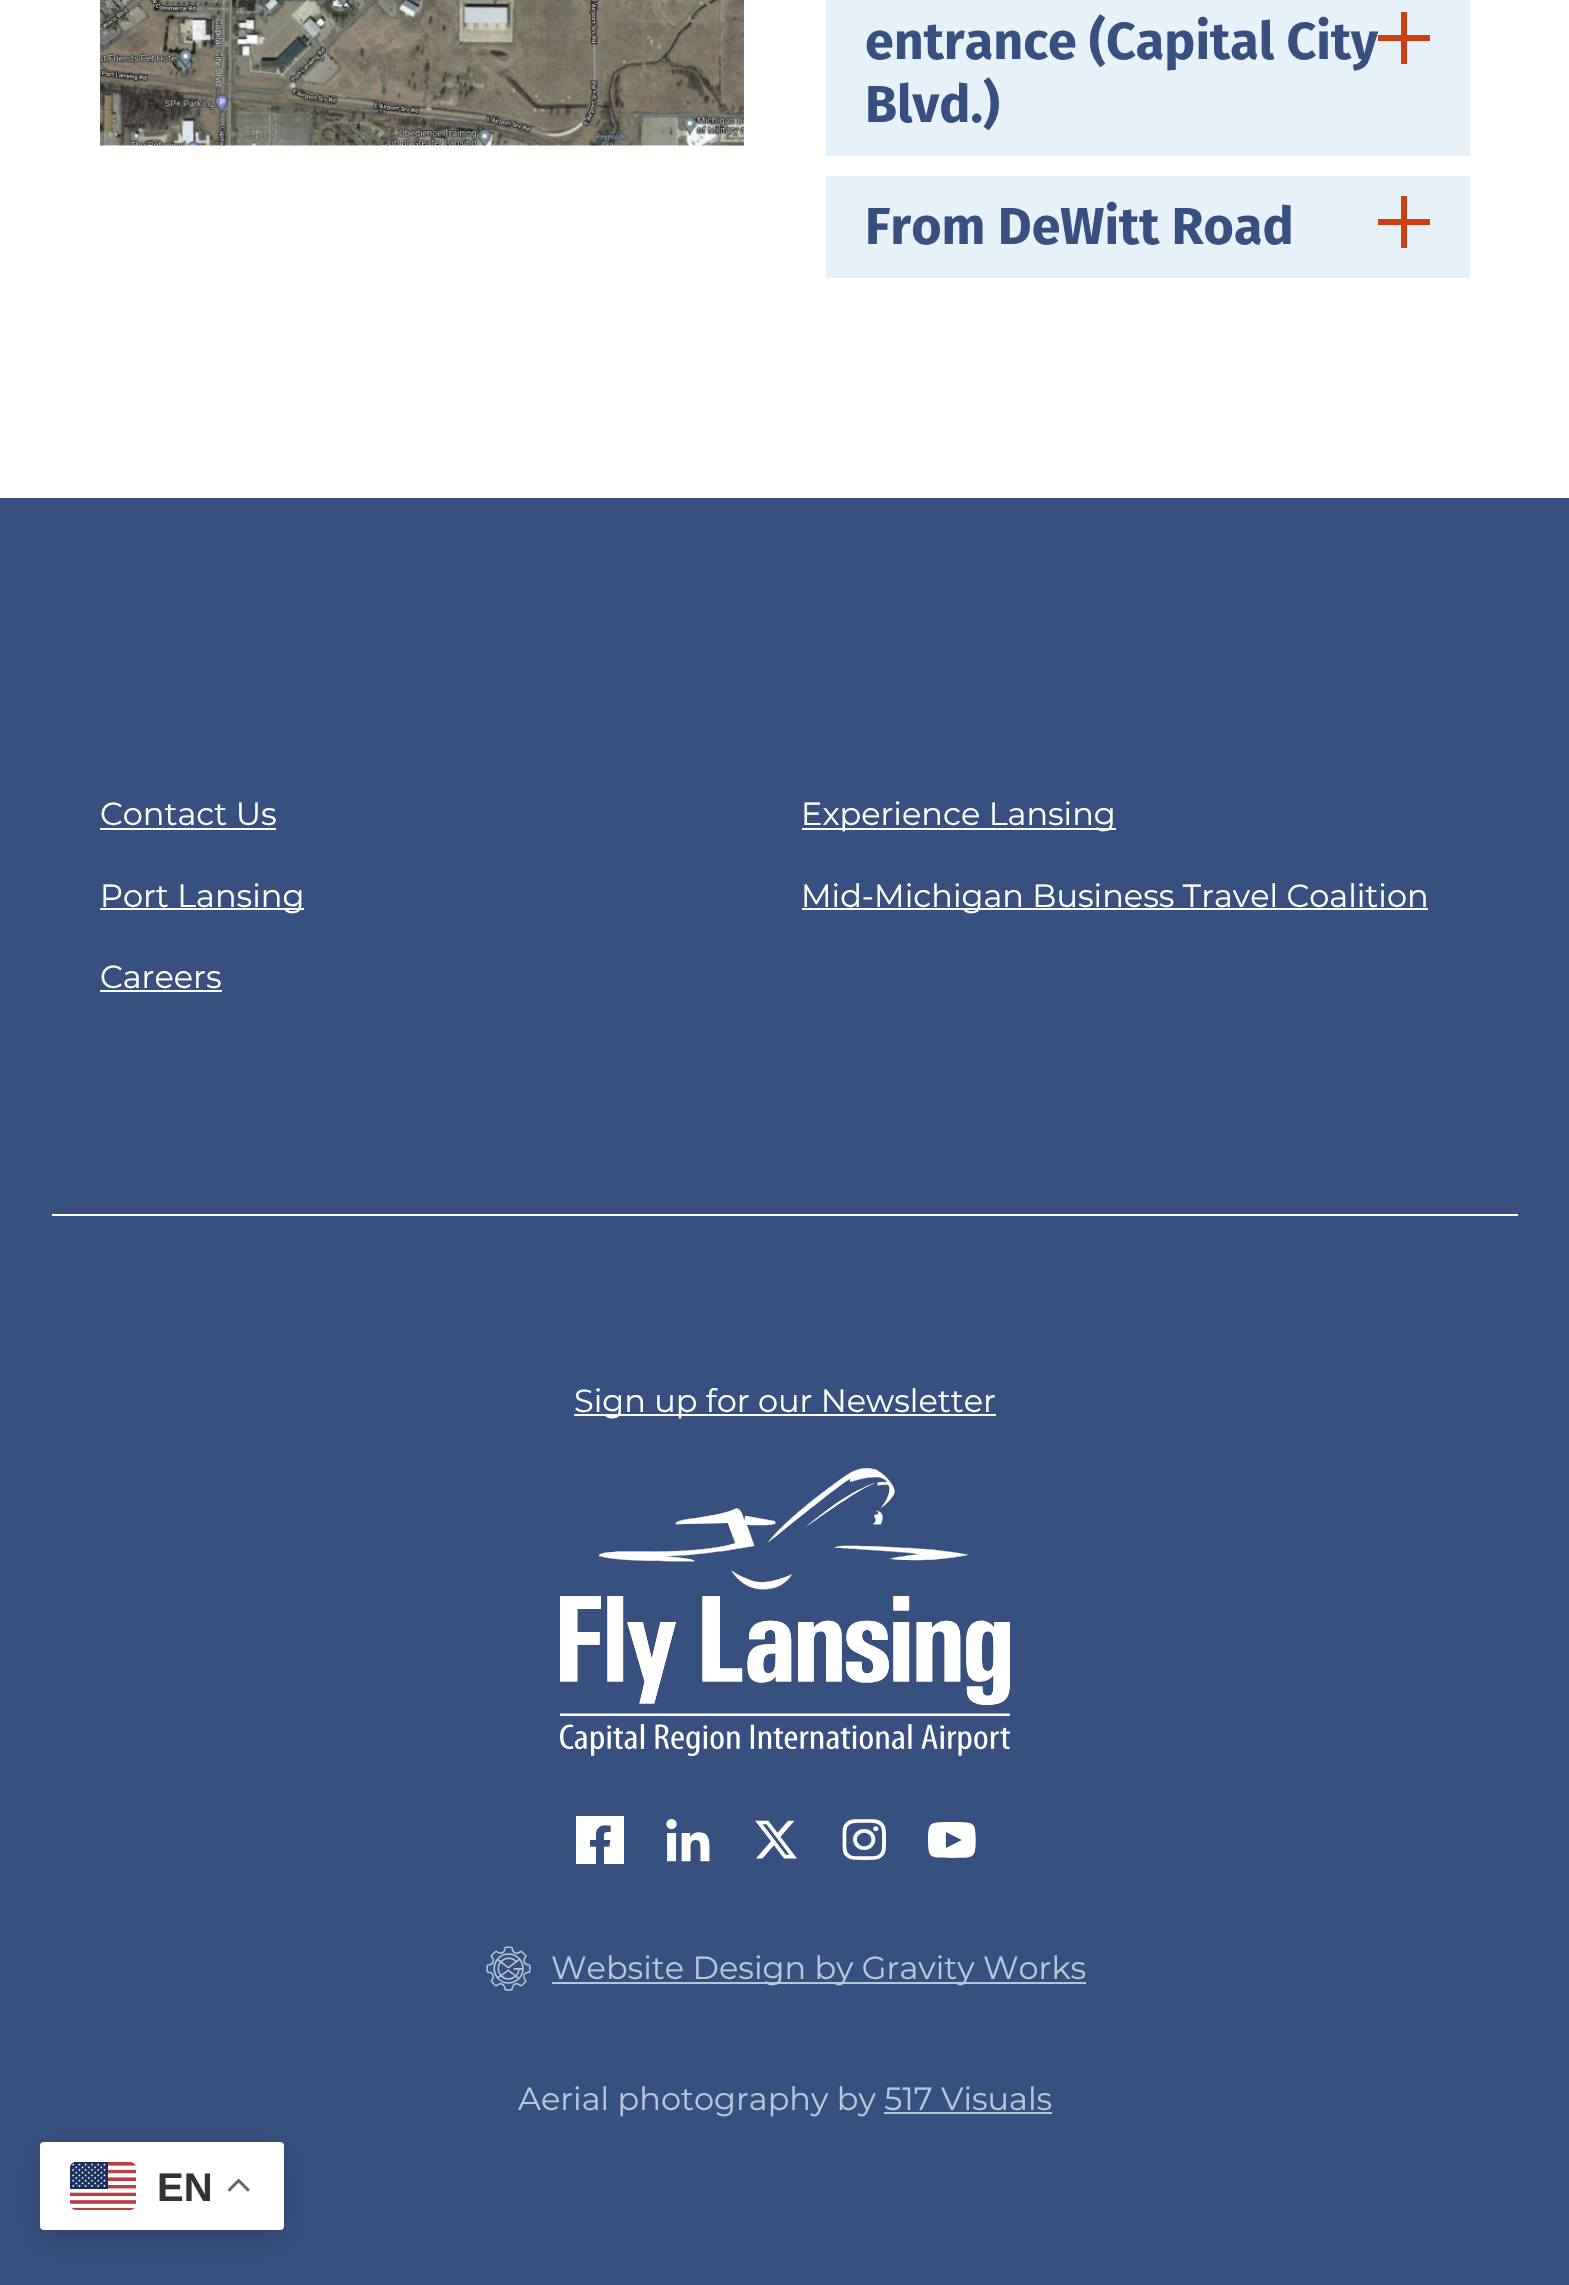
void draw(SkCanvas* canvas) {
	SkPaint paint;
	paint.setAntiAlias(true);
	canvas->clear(0xffffffff);
	canvas->drawImageRect(SkImages::DeferredFromEncodedData(SkData::MakeFromFileName("img1.png")), SkRect::MakeXYWH(100, 0, 644, 146), SkSamplingOptions());
	paint.setColor(0xffe6f1f9);
	canvas->drawRect(SkRect::MakeXYWH(826, 0, 644, 156), paint);
	SkFont f1(fontMgr->matchFamilyStyle("Fira Sans", SkFontStyle::Bold()), 52);
	f1.setSubpixel(true);
	paint.setColor(0xff37507f);
	canvas->drawString("entrance (Capital City", 865, 59, f1, paint);
	canvas->drawString("Blvd.)", 865, 122, f1, paint);
	canvas->drawImageRect(SkImages::DeferredFromEncodedData(SkData::MakeFromFileName("img2.png")), SkRect::MakeXYWH(1378, 12, 52, 52), SkSamplingOptions());
	paint.setColor(0xffe6f1f9);
	canvas->drawRect(SkRect::MakeXYWH(826, 176, 644, 102), paint);
	paint.setColor(0xff37507f);
	canvas->drawString("From DeWitt Road", 865, 244, f1, paint);
	canvas->drawImageRect(SkImages::DeferredFromEncodedData(SkData::MakeFromFileName("img3.png")), SkRect::MakeXYWH(1378, 196, 52, 52), SkSamplingOptions());
	canvas->drawRect(SkRect::MakeXYWH(0, 498, 1569, 1787), paint);
	SkFont f2(fontMgr->matchFamilyStyle("Montserrat", SkFontStyle::Normal()), 32);
	f2.setSubpixel(true);
	paint.setColor(0xffffffff);
	canvas->drawString("Contact Us", 100, 825, f2, paint);
	canvas->drawRect(SkRect::MakeXYWH(100, 828, 176, 2), paint);
	canvas->drawRect(SkRect::MakeXYWH(802, 828, 314, 2), paint);
	canvas->drawString("Experience Lansing", 801, 825, f2, paint);
	canvas->drawRect(SkRect::MakeXYWH(100, 908, 204, 2), paint);
	canvas->drawString("Port Lansing", 100, 907, f2, paint);
	canvas->drawRect(SkRect::MakeXYWH(802, 908, 626, 2), paint);
	canvas->drawString("Mid-Michigan Business Travel Coalition", 801, 907, f2, paint);
	canvas->drawString("Careers", 100, 988, f2, paint);
	canvas->drawRect(SkRect::MakeXYWH(100, 990, 122, 2), paint);
	paint.setColor(0x26000000);
	paint.setMaskFilter(SkMaskFilter::MakeBlur(kNormal_SkBlurStyle, 15));
	canvas->drawRoundRect(SkRect::MakeXYWH(40, 2152, 244, 88), 4, 4, paint);
	paint.setMaskFilter(nullptr);
	paint.setColor(0xffffffff);
	canvas->drawRoundRect(SkRect::MakeXYWH(40, 2142, 244, 88), 4, 4, paint);
	canvas->drawImageRect(SkImages::DeferredFromEncodedData(SkData::MakeFromFileName("img4.png")), SkRect::MakeXYWH(70, 2162, 66, 48), SkSamplingOptions());
	SkFont f3(fontMgr->matchFamilyStyle("Liberation Sans", SkFontStyle::Bold()), 40);
	f3.setSubpixel(true);
	paint.setColor(0xff333333);
	canvas->drawString("EN", 157, 2201, f3, paint);
	canvas->drawImageRect(SkImages::DeferredFromEncodedData(SkData::MakeFromFileName("img5.png")), SkRect::MakeXYWH(228, 2178, 22, 14), SkSamplingOptions());
	paint.setColor(0xffffffff);
	canvas->drawRect(SkRect::MakeXYWH(52, 1214, 1466, 2), paint);
	canvas->drawRect(SkRect::MakeXYWH(574, 1414, 422, 2), paint);
	canvas->drawString("Sign up for our Newsletter", 574, 1412, f2, paint);
	canvas->drawImageRect(SkImages::DeferredFromEncodedData(SkData::MakeFromFileName("img6.png")), SkRect::MakeXYWH(560, 1468, 450, 288), SkSamplingOptions());
	canvas->drawImageRect(SkImages::DeferredFromEncodedData(SkData::MakeFromFileName("img7.png")), SkRect::MakeXYWH(576, 1816, 48, 48), SkSamplingOptions());
	canvas->drawImageRect(SkImages::DeferredFromEncodedData(SkData::MakeFromFileName("img8.png")), SkRect::MakeXYWH(666, 1819, 44, 43), SkSamplingOptions());
	canvas->drawImageRect(SkImages::DeferredFromEncodedData(SkData::MakeFromFileName("img9.png")), SkRect::MakeXYWH(755, 1820, 42, 39), SkSamplingOptions());
	canvas->drawImageRect(SkImages::DeferredFromEncodedData(SkData::MakeFromFileName("img10.png")), SkRect::MakeXYWH(842, 1819, 44, 41), SkSamplingOptions());
	canvas->drawImageRect(SkImages::DeferredFromEncodedData(SkData::MakeFromFileName("img11.png")), SkRect::MakeXYWH(928, 1822, 48, 36), SkSamplingOptions());
	canvas->drawImageRect(SkImages::DeferredFromEncodedData(SkData::MakeFromFileName("img12.png")), SkRect::MakeXYWH(486, 1946, 45, 45), SkSamplingOptions());
	paint.setColor(0xffbac6d8);
	canvas->drawRect(SkRect::MakeXYWH(552, 1982, 534, 2), paint);
	canvas->drawString("Website Design by Gravity Works", 551, 1979, f2, paint);
	canvas->drawString("Aerial photography by 517 Visuals", 518, 2110, f2, paint);
	canvas->drawRect(SkRect::MakeXYWH(884, 2112, 168, 2), paint);
}
